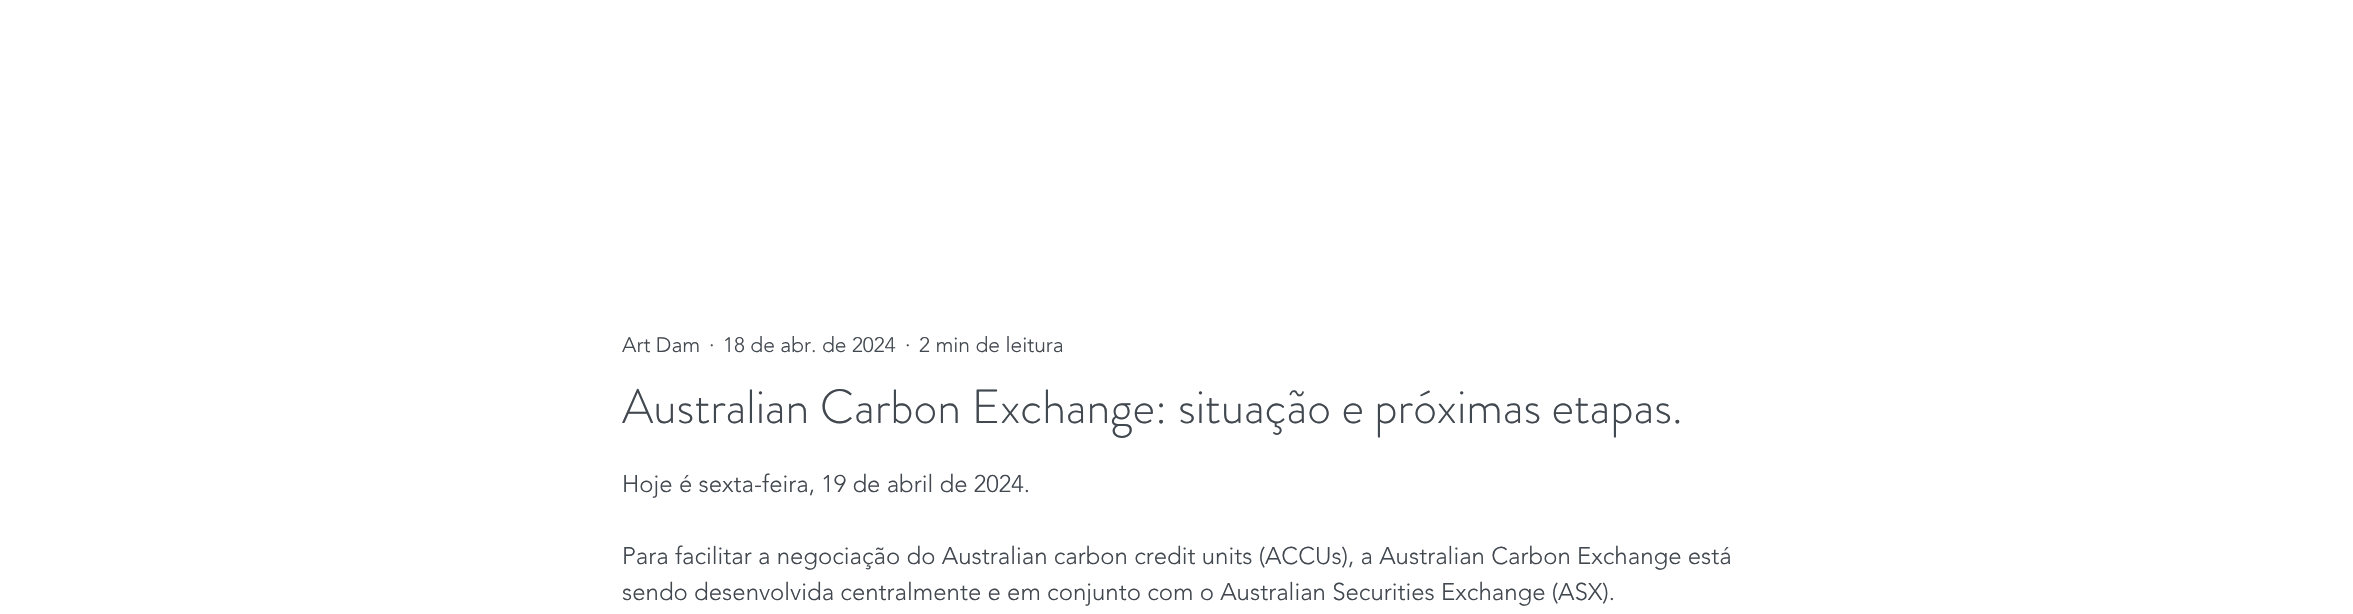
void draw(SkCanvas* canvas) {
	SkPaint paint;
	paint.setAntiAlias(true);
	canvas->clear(0xffffffff);
	SkFont f1(fontMgr->matchFamilyStyle("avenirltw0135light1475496", SkFontStyle(300, SkFontStyle::kNormal_Width, SkFontStyle::kUpright_Slant)), 21);
	f1.setSubpixel(true);
	paint.setColor(0xff42484f);
	canvas->drawString("Art Dam", 622, 352, f1, paint);
	canvas->drawString("·", 709, 352, f1, paint);
	canvas->drawString("18 de abr. de 2024", 723, 352, f1, paint);
	canvas->drawString("·", 905, 352, f1, paint);
	canvas->drawString("2 min de leitura", 919, 352, f1, paint);
	SkFont f2(fontMgr->matchFamilyStyle("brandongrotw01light", SkFontStyle(300, SkFontStyle::kNormal_Width, SkFontStyle::kUpright_Slant)), 48);
	f2.setSubpixel(true);
	canvas->drawString("Australian Carbon Exchange: situação e próximas etapas.", 622, 423, f2, paint);
	SkFont f3(fontMgr->matchFamilyStyle("avenirltw0135light1475496", SkFontStyle(300, SkFontStyle::kNormal_Width, SkFontStyle::kUpright_Slant)), 24);
	f3.setSubpixel(true);
	canvas->drawString("Hoje é sexta-feira, 19 de abril de 2024.", 622, 492, f3, paint);
	canvas->drawString("Para facilitar a negociação do Australian carbon credit units (ACCUs), a Australian Carbon Exchange está", 622, 564, f3, paint);
	canvas->drawString("sendo desenvolvida centralmente e em conjunto com o Australian Securities Exchange (ASX).", 622, 600, f3, paint);
}
